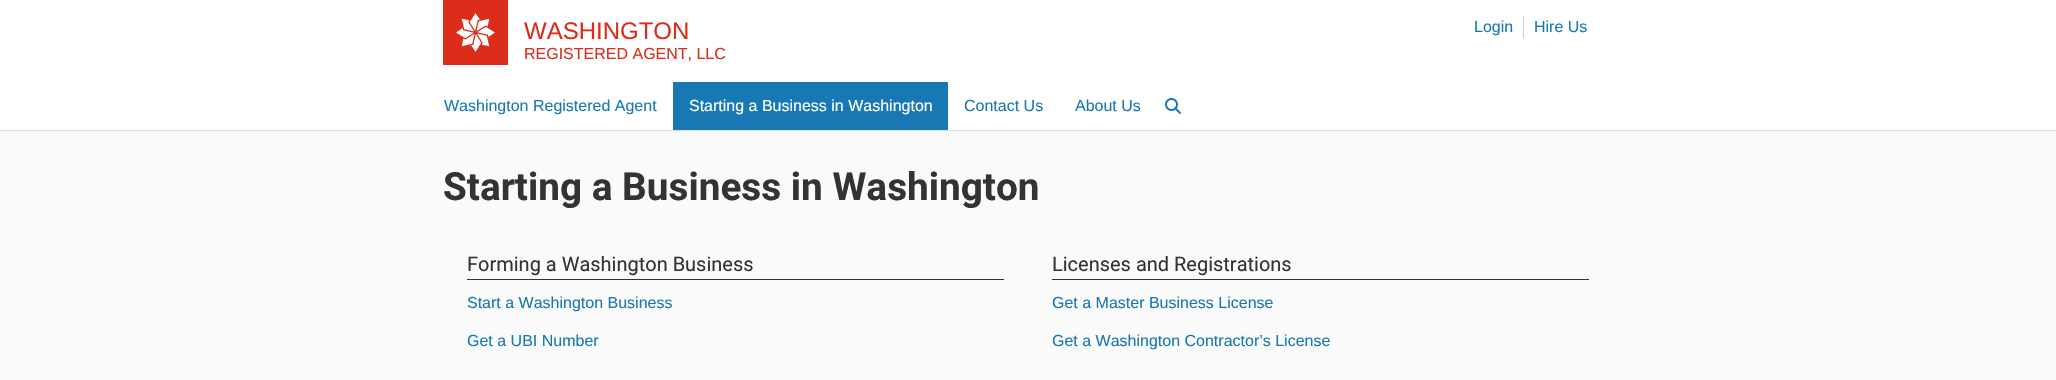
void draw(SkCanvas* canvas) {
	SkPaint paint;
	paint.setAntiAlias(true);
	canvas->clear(0xffffffff);
	paint.setColor(0xffdb2d1a);
	canvas->drawRect(SkRect::MakeXYWH(443, 0, 65, 65), paint);
	canvas->drawImageRect(SkImages::DeferredFromEncodedData(SkData::MakeFromFileName("img1.png")), SkRect::MakeXYWH(456, 13, 39, 39), SkSamplingOptions());
	SkFont f1(fontMgr->matchFamilyStyle("Liberation Sans", SkFontStyle::Normal()), 24);
	f1.setSubpixel(true);
	canvas->drawString("WASHINGTON", 524, 39, f1, paint);
	SkFont f2(fontMgr->matchFamilyStyle("Liberation Sans", SkFontStyle::Normal()), 16);
	f2.setSubpixel(true);
	canvas->drawString("REGISTERED AGENT, LLC", 524, 59, f2, paint);
	paint.setColor(0xffcccccc);
	canvas->drawRect(SkRect::MakeXYWH(1523, 16, 1, 22), paint);
	paint.setColor(0xff1778b3);
	canvas->drawString("Login", 1474, 32, f2, paint);
	canvas->drawString("Hire Us", 1534, 32, f2, paint);
	canvas->drawString("Washington Registered Agent", 444, 111, f2, paint);
	canvas->drawRect(SkRect::MakeXYWH(673, 82, 275, 48), paint);
	paint.setColor(0xffffffff);
	canvas->drawString("Starting a Business in Washington", 689, 111, f2, paint);
	paint.setColor(0xff1778b3);
	canvas->drawString("Contact Us", 964, 111, f2, paint);
	canvas->drawString("About Us", 1075, 111, f2, paint);
	canvas->drawImageRect(SkImages::DeferredFromEncodedData(SkData::MakeFromFileName("img2.png")), SkRect::MakeXYWH(1165, 98, 16, 16), SkSamplingOptions());
	paint.setColor(0xfffafafa);
	canvas->drawRect(SkRect::MakeXYWH(0, 131, 2056, 249), paint);
	paint.setColor(0xffdddddd);
	canvas->drawRect(SkRect::MakeXYWH(0, 130, 2056, 1), paint);
	SkFont f3(fontMgr->matchFamilyStyle("Roboto", SkFontStyle::Bold()), 38.75);
	f3.setSubpixel(true);
	paint.setColor(0xff333333);
	canvas->drawString("Starting a Business in Washington", 443, 200, f3, paint);
	canvas->drawRect(SkRect::MakeXYWH(467, 279, 537, 1), paint);
	SkFont f4(fontMgr->matchFamilyStyle("Roboto", SkFontStyle::Normal()), 20);
	f4.setSubpixel(true);
	canvas->drawString("Forming a Washington Business", 467, 271, f4, paint);
	paint.setColor(0xff1778b3);
	canvas->drawString("Start a Washington Business", 467, 308, f2, paint);
	canvas->drawString("Get a UBI Number", 467, 346, f2, paint);
	paint.setColor(0xff333333);
	canvas->drawRect(SkRect::MakeXYWH(1052, 279, 537, 1), paint);
	canvas->drawString("Licenses and Registrations", 1052, 271, f4, paint);
	paint.setColor(0xff1778b3);
	canvas->drawString("Get a Master Business License", 1052, 308, f2, paint);
	canvas->drawString("Get a Washington Contractor’s License", 1052, 346, f2, paint);
}
